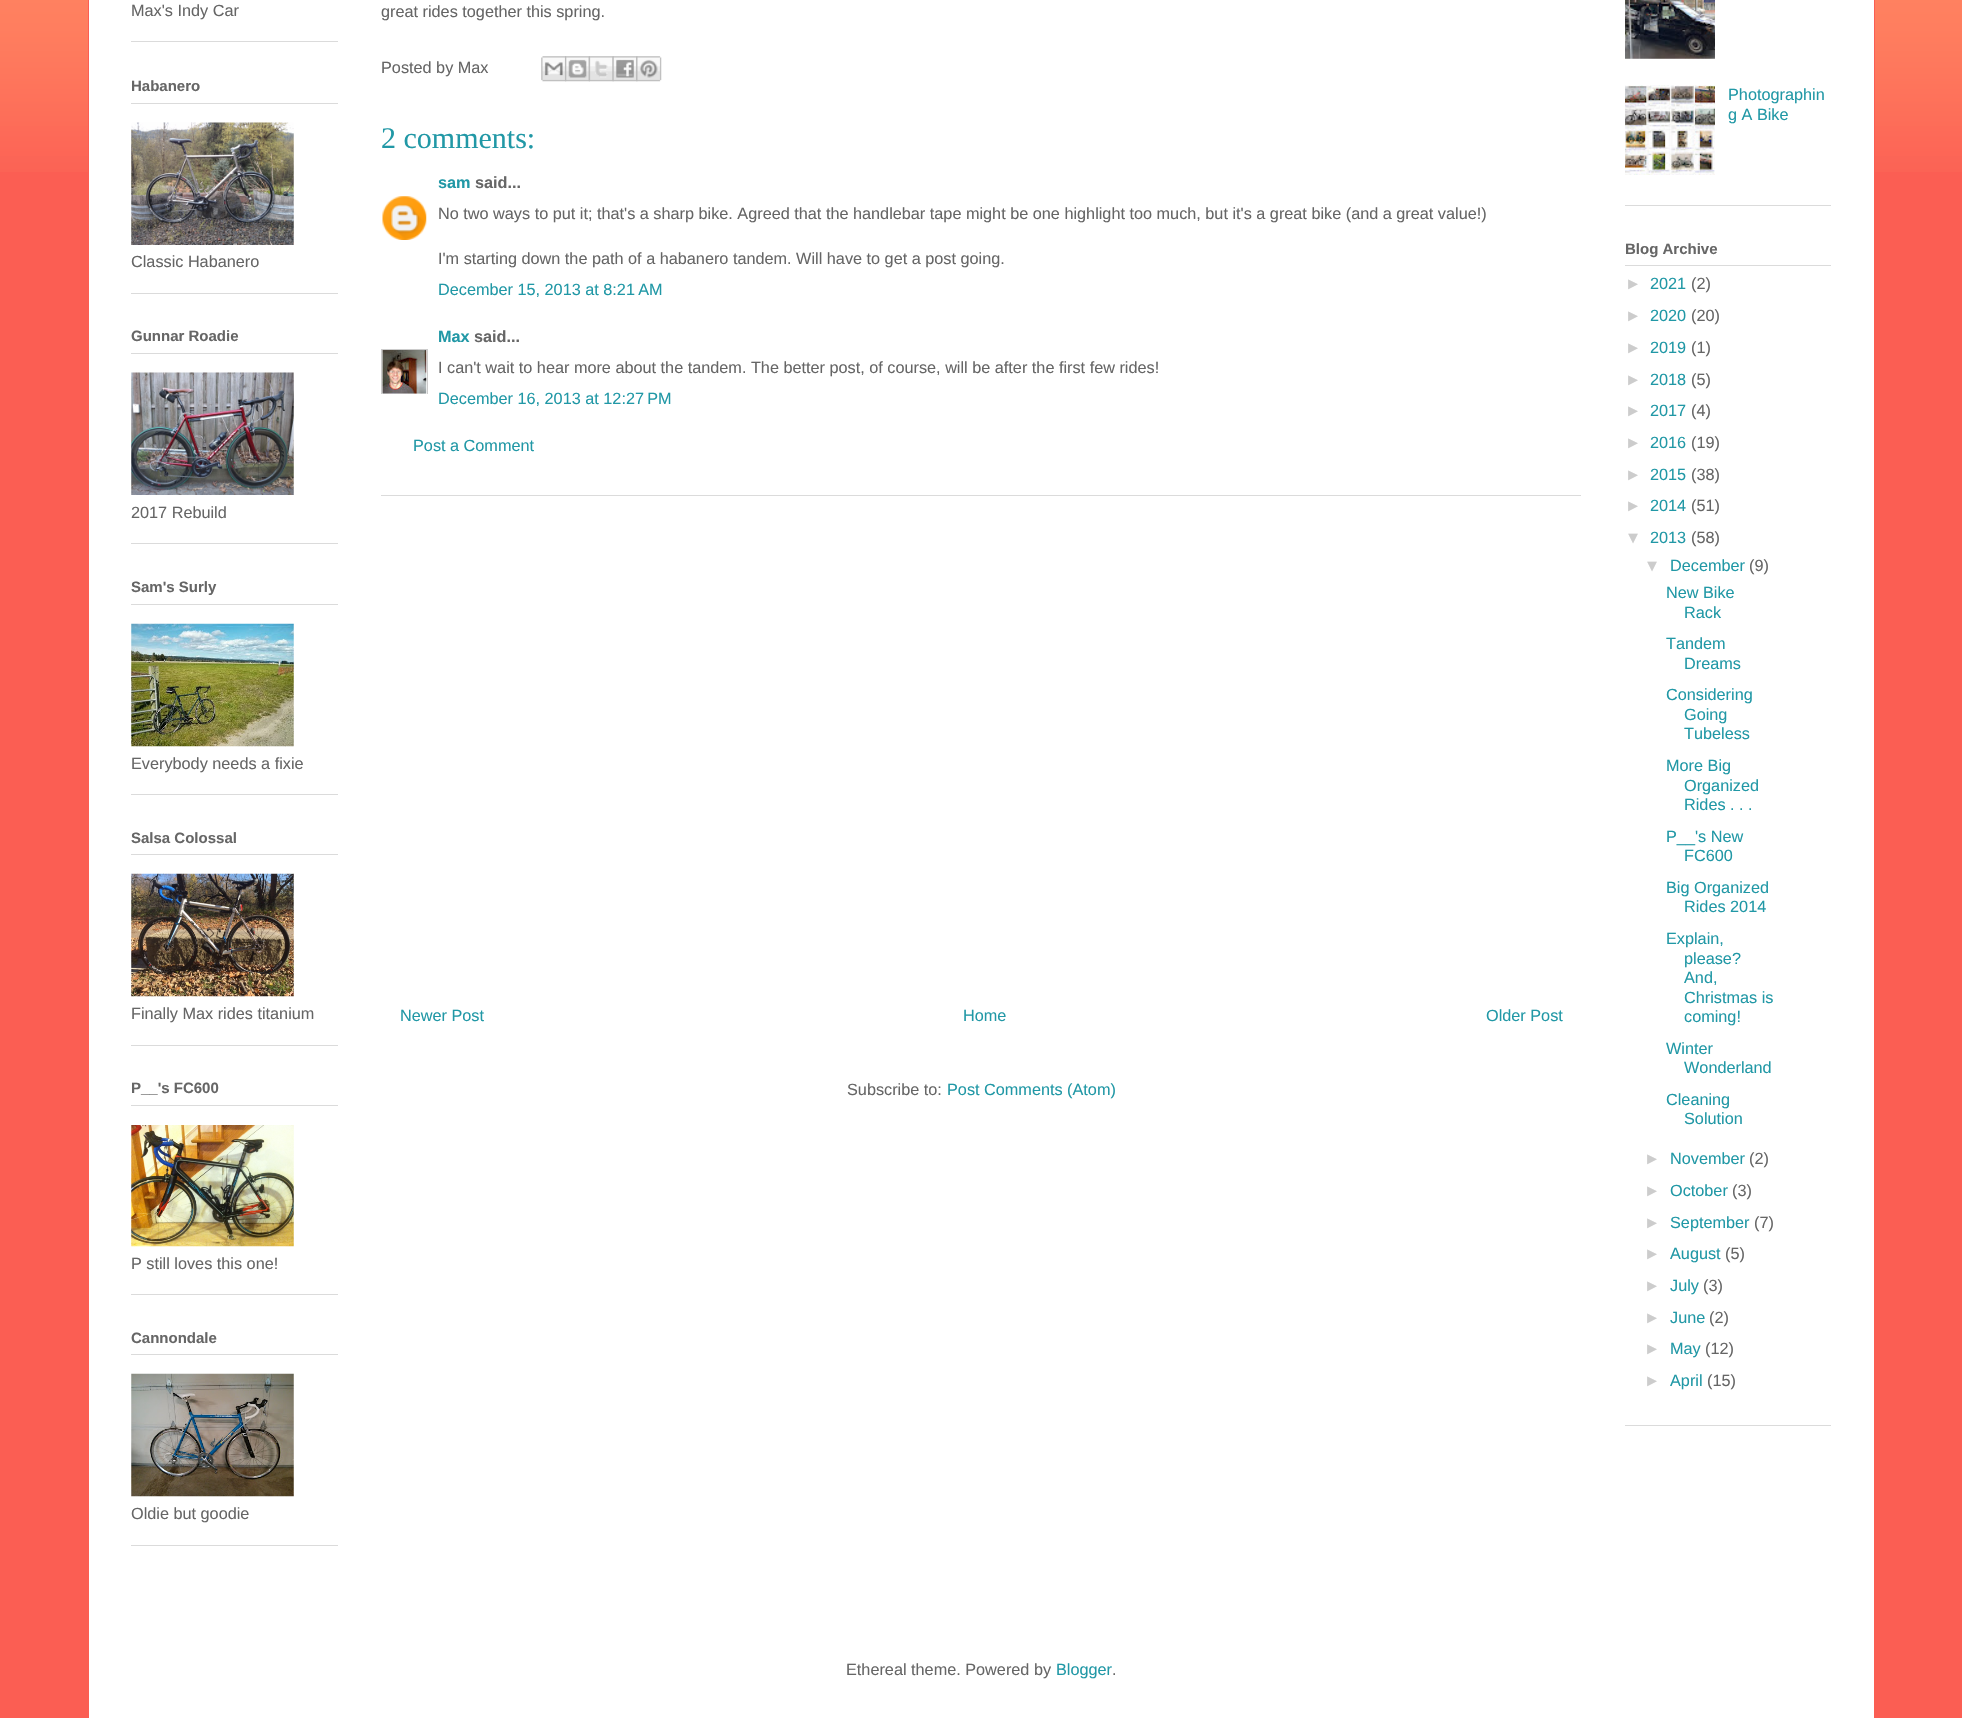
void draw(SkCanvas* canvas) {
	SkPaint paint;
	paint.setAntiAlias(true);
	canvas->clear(0xfffb5e53);
	canvas->drawImageRect(SkImages::DeferredFromEncodedData(SkData::MakeFromFileName("img1.png")), SkRect::MakeXYWH(0, 0, 1962, 172), SkSamplingOptions());
	paint.setColor(0xffffffff);
	canvas->drawRect(SkRect::MakeXYWH(89, 0, 1785, 1718), paint);
	paint.setColor(0xfffb5e53);
	canvas->drawRect(SkRect::MakeXYWH(1874, 0, 1, 172), paint);
	canvas->drawRect(SkRect::MakeXYWH(88, 0, 1, 172), paint);
	paint.setColor(0xffdbdbdb);
	canvas->drawRect(SkRect::MakeXYWH(131, 41, 207, 1), paint);
	SkFont f1(fontMgr->matchFamilyStyle("Liberation Sans", SkFontStyle::Normal()), 16.25);
	f1.setSubpixel(true);
	paint.setColor(0xff666666);
	canvas->drawString("Max's Indy Car", 131, 16, f1, paint);
	paint.setColor(0xffdbdbdb);
	canvas->drawRect(SkRect::MakeXYWH(131, 293, 207, 1), paint);
	canvas->drawRect(SkRect::MakeXYWH(131, 103, 207, 1), paint);
	SkFont f2(fontMgr->matchFamilyStyle("Liberation Sans", SkFontStyle::Bold()), 15);
	f2.setSubpixel(true);
	paint.setColor(0xff666666);
	canvas->drawString("Habanero", 131, 91, f2, paint);
	canvas->drawImageRect(SkImages::DeferredFromEncodedData(SkData::MakeFromFileName("img2.png")), SkRect::MakeXYWH(131, 122, 163, 123), SkSamplingOptions());
	canvas->drawString("Classic Habanero", 131, 267, f1, paint);
	paint.setColor(0xffdbdbdb);
	canvas->drawRect(SkRect::MakeXYWH(131, 543, 207, 1), paint);
	canvas->drawRect(SkRect::MakeXYWH(131, 353, 207, 1), paint);
	paint.setColor(0xff666666);
	canvas->drawString("Gunnar Roadie", 131, 341, f2, paint);
	canvas->drawImageRect(SkImages::DeferredFromEncodedData(SkData::MakeFromFileName("img3.png")), SkRect::MakeXYWH(131, 372, 163, 123), SkSamplingOptions());
	canvas->drawString("2017 Rebuild", 131, 518, f1, paint);
	paint.setColor(0xffdbdbdb);
	canvas->drawRect(SkRect::MakeXYWH(131, 794, 207, 1), paint);
	canvas->drawRect(SkRect::MakeXYWH(131, 604, 207, 1), paint);
	paint.setColor(0xff666666);
	canvas->drawString("Sam's Surly", 131, 592, f2, paint);
	canvas->drawImageRect(SkImages::DeferredFromEncodedData(SkData::MakeFromFileName("img4.png")), SkRect::MakeXYWH(131, 623, 163, 124), SkSamplingOptions());
	canvas->drawString("Everybody needs a fixie", 131, 769, f1, paint);
	paint.setColor(0xffdbdbdb);
	canvas->drawRect(SkRect::MakeXYWH(131, 1045, 207, 1), paint);
	canvas->drawRect(SkRect::MakeXYWH(131, 854, 207, 1), paint);
	paint.setColor(0xff666666);
	canvas->drawString("Salsa Colossal", 131, 843, f2, paint);
	canvas->drawImageRect(SkImages::DeferredFromEncodedData(SkData::MakeFromFileName("img5.png")), SkRect::MakeXYWH(131, 873, 163, 124), SkSamplingOptions());
	canvas->drawString("Finally Max rides titanium", 131, 1019, f1, paint);
	paint.setColor(0xffdbdbdb);
	canvas->drawRect(SkRect::MakeXYWH(131, 1294, 207, 1), paint);
	canvas->drawRect(SkRect::MakeXYWH(131, 1105, 207, 1), paint);
	paint.setColor(0xff666666);
	canvas->drawString("P__'s FC600", 131, 1093, f2, paint);
	canvas->drawImageRect(SkImages::DeferredFromEncodedData(SkData::MakeFromFileName("img6.png")), SkRect::MakeXYWH(131, 1125, 163, 122), SkSamplingOptions());
	canvas->drawString("P still loves this one!", 131, 1269, f1, paint);
	paint.setColor(0xffdbdbdb);
	canvas->drawRect(SkRect::MakeXYWH(131, 1545, 207, 1), paint);
	canvas->drawRect(SkRect::MakeXYWH(131, 1354, 207, 1), paint);
	paint.setColor(0xff666666);
	canvas->drawString("Cannondale", 131, 1343, f2, paint);
	canvas->drawImageRect(SkImages::DeferredFromEncodedData(SkData::MakeFromFileName("img7.png")), SkRect::MakeXYWH(131, 1373, 163, 124), SkSamplingOptions());
	canvas->drawString("Oldie but goodie", 131, 1519, f1, paint);
	paint.setColor(0xffdbdbdb);
	canvas->drawRect(SkRect::MakeXYWH(381, 495, 1200, 1), paint);
	paint.setColor(0xff666666);
	canvas->drawString("great rides together this spring.", 381, 17, f1, paint);
	canvas->drawString("Posted by Max", 381, 73, f1, paint);
	canvas->drawImageRect(SkImages::DeferredFromEncodedData(SkData::MakeFromFileName("img8.png")), SkRect::MakeXYWH(541, 56, 26, 26), SkSamplingOptions());
	canvas->drawImageRect(SkImages::DeferredFromEncodedData(SkData::MakeFromFileName("img9.png")), SkRect::MakeXYWH(565, 56, 25, 26), SkSamplingOptions());
	canvas->drawImageRect(SkImages::DeferredFromEncodedData(SkData::MakeFromFileName("img10.png")), SkRect::MakeXYWH(588, 56, 26, 26), SkSamplingOptions());
	canvas->drawImageRect(SkImages::DeferredFromEncodedData(SkData::MakeFromFileName("img11.png")), SkRect::MakeXYWH(612, 56, 26, 26), SkSamplingOptions());
	canvas->drawImageRect(SkImages::DeferredFromEncodedData(SkData::MakeFromFileName("img12.png")), SkRect::MakeXYWH(636, 56, 26, 26), SkSamplingOptions());
	SkFont f3(fontMgr->matchFamilyStyle("Liberation Serif", SkFontStyle::Normal()), 30);
	f3.setSubpixel(true);
	paint.setColor(0xff2198a6);
	canvas->drawString("2 comments:", 381, 148, f3, paint);
	SkFont f4(fontMgr->matchFamilyStyle("Liberation Sans", SkFontStyle::Bold()), 16.25);
	f4.setSubpixel(true);
	canvas->drawString("sam", 438, 188, f4, paint);
	paint.setColor(0xff666666);
	canvas->drawString("said...", 475, 188, f4, paint);
	canvas->drawImageRect(SkImages::DeferredFromEncodedData(SkData::MakeFromFileName("img13.png")), SkRect::MakeXYWH(382, 196, 45, 44), SkSamplingOptions());
	canvas->drawString("No two ways to put it; that's a sharp bike. Agreed that the handlebar tape might be one highlight too much, but it's a great bike (and a great value!)", 438, 219, f1, paint);
	canvas->drawString("I'm starting down the path of a habanero tandem. Will have to get a post going.", 438, 264, f1, paint);
	paint.setColor(0xff2198a6);
	canvas->drawString("December 15, 2013 at 8:21 AM", 438, 295, f1, paint);
	canvas->drawString("Max", 438, 342, f4, paint);
	paint.setColor(0xff666666);
	canvas->drawString("said...", 474, 342, f4, paint);
	canvas->save();
	canvas->clipRect(SkRect::MakeXYWH(381, 349, 47, 45));
	paint.setStroke(true);
	paint.setStrokeWidth(1);
	paint.setColor(0xffcccccc);
	canvas->drawRect(SkRect::MakeXYWH(381.5, 349.5, 46, 45), paint);
	canvas->restore();
	canvas->drawImageRect(SkImages::DeferredFromEncodedData(SkData::MakeFromFileName("img14.png")), SkRect::MakeXYWH(382, 350, 45, 44), SkSamplingOptions());
	paint.setStroke(false);
	paint.setColor(0xff666666);
	canvas->drawString("I can't wait to hear more about the tandem. The better post, of course, will be after the first few rides!", 438, 373, f1, paint);
	paint.setColor(0xff2198a6);
	canvas->drawString("December 16, 2013 at 12:27 PM", 438, 404, f1, paint);
	canvas->drawString("Post a Comment", 413, 451, f1, paint);
	canvas->drawString("Newer Post", 400, 1021, f1, paint);
	canvas->drawString("Home", 963, 1021, f1, paint);
	canvas->drawString("Older Post", 1486, 1021, f1, paint);
	paint.setColor(0xff666666);
	canvas->drawString("Subscribe to:", 847, 1095, f1, paint);
	paint.setColor(0xff2198a6);
	canvas->drawString("Post Comments (Atom)", 947, 1095, f1, paint);
	paint.setColor(0xffdbdbdb);
	canvas->drawRect(SkRect::MakeXYWH(1625, 205, 206, 1), paint);
	canvas->drawImageRect(SkImages::DeferredFromEncodedData(SkData::MakeFromFileName("img15.png")), SkRect::MakeXYWH(1625, 0, 90, 59), SkSamplingOptions());
	canvas->drawImageRect(SkImages::DeferredFromEncodedData(SkData::MakeFromFileName("img16.png")), SkRect::MakeXYWH(1625, 85, 90, 90), SkSamplingOptions());
	paint.setColor(0xff2198a6);
	canvas->drawString("Photographin", 1728, 100, f1, paint);
	canvas->drawString("g A Bike", 1728, 120, f1, paint);
	paint.setColor(0xffdbdbdb);
	canvas->drawRect(SkRect::MakeXYWH(1625, 1425, 206, 1), paint);
	canvas->drawRect(SkRect::MakeXYWH(1625, 265, 206, 1), paint);
	paint.setColor(0xff666666);
	canvas->drawString("Blog Archive", 1625, 254, f2, paint);
	paint.setColor(0xffcccccc);
	canvas->drawString("►", 1625, 289, f1, paint);
	paint.setColor(0xff2198a6);
	canvas->drawString("2021", 1650, 289, f1, paint);
	paint.setColor(0xff666666);
	canvas->drawString("(2)", 1691, 289, f1, paint);
	paint.setColor(0xffcccccc);
	canvas->drawString("►", 1625, 321, f1, paint);
	paint.setColor(0xff2198a6);
	canvas->drawString("2020", 1650, 321, f1, paint);
	paint.setColor(0xff666666);
	canvas->drawString("(20)", 1691, 321, f1, paint);
	paint.setColor(0xffcccccc);
	canvas->drawString("►", 1625, 353, f1, paint);
	paint.setColor(0xff2198a6);
	canvas->drawString("2019", 1650, 353, f1, paint);
	paint.setColor(0xff666666);
	canvas->drawString("(1)", 1691, 353, f1, paint);
	paint.setColor(0xffcccccc);
	canvas->drawString("►", 1625, 385, f1, paint);
	paint.setColor(0xff2198a6);
	canvas->drawString("2018", 1650, 385, f1, paint);
	paint.setColor(0xff666666);
	canvas->drawString("(5)", 1691, 385, f1, paint);
	paint.setColor(0xffcccccc);
	canvas->drawString("►", 1625, 416, f1, paint);
	paint.setColor(0xff2198a6);
	canvas->drawString("2017", 1650, 416, f1, paint);
	paint.setColor(0xff666666);
	canvas->drawString("(4)", 1691, 416, f1, paint);
	paint.setColor(0xffcccccc);
	canvas->drawString("►", 1625, 448, f1, paint);
	paint.setColor(0xff2198a6);
	canvas->drawString("2016", 1650, 448, f1, paint);
	paint.setColor(0xff666666);
	canvas->drawString("(19)", 1691, 448, f1, paint);
	paint.setColor(0xffcccccc);
	canvas->drawString("►", 1625, 480, f1, paint);
	paint.setColor(0xff2198a6);
	canvas->drawString("2015", 1650, 480, f1, paint);
	paint.setColor(0xff666666);
	canvas->drawString("(38)", 1691, 480, f1, paint);
	paint.setColor(0xffcccccc);
	canvas->drawString("►", 1625, 511, f1, paint);
	paint.setColor(0xff2198a6);
	canvas->drawString("2014", 1650, 511, f1, paint);
	paint.setColor(0xff666666);
	canvas->drawString("(51)", 1691, 511, f1, paint);
	paint.setColor(0xffcccccc);
	canvas->drawString("▼", 1625, 543, f1, paint);
	paint.setColor(0xff2198a6);
	canvas->drawString("2013", 1650, 543, f1, paint);
	paint.setColor(0xff666666);
	canvas->drawString("(58)", 1691, 543, f1, paint);
	paint.setColor(0xffcccccc);
	canvas->drawString("▼", 1644, 571, f1, paint);
	paint.setColor(0xff2198a6);
	canvas->drawString("December", 1670, 571, f1, paint);
	paint.setColor(0xff666666);
	canvas->drawString("(9)", 1749, 571, f1, paint);
	paint.setColor(0xff2198a6);
	canvas->drawString("New Bike", 1666, 598, f1, paint);
	canvas->drawString("Rack", 1684, 618, f1, paint);
	canvas->drawString("Tandem", 1666, 649, f1, paint);
	canvas->drawString("Dreams", 1684, 669, f1, paint);
	canvas->drawString("Considering", 1666, 700, f1, paint);
	canvas->drawString("Going", 1684, 720, f1, paint);
	canvas->drawString("Tubeless", 1684, 739, f1, paint);
	canvas->drawString("More Big", 1666, 771, f1, paint);
	canvas->drawString("Organized", 1684, 791, f1, paint);
	canvas->drawString("Rides . . .", 1684, 810, f1, paint);
	canvas->drawString("P__'s New", 1666, 842, f1, paint);
	canvas->drawString("FC600", 1684, 861, f1, paint);
	canvas->drawString("Big Organized", 1666, 893, f1, paint);
	canvas->drawString("Rides 2014", 1684, 912, f1, paint);
	canvas->drawString("Explain,", 1666, 944, f1, paint);
	canvas->drawString("please?", 1684, 964, f1, paint);
	canvas->drawString("And,", 1684, 983, f1, paint);
	canvas->drawString("Christmas is", 1684, 1003, f1, paint);
	canvas->drawString("coming!", 1684, 1022, f1, paint);
	canvas->drawString("Winter", 1666, 1054, f1, paint);
	canvas->drawString("Wonderland", 1684, 1073, f1, paint);
	canvas->drawString("Cleaning", 1666, 1105, f1, paint);
	canvas->drawString("Solution", 1684, 1124, f1, paint);
	paint.setColor(0xffcccccc);
	canvas->drawString("►", 1644, 1164, f1, paint);
	paint.setColor(0xff2198a6);
	canvas->drawString("November", 1670, 1164, f1, paint);
	paint.setColor(0xff666666);
	canvas->drawString("(2)", 1749, 1164, f1, paint);
	paint.setColor(0xffcccccc);
	canvas->drawString("►", 1644, 1196, f1, paint);
	paint.setColor(0xff2198a6);
	canvas->drawString("October", 1670, 1196, f1, paint);
	paint.setColor(0xff666666);
	canvas->drawString("(3)", 1732, 1196, f1, paint);
	paint.setColor(0xffcccccc);
	canvas->drawString("►", 1644, 1228, f1, paint);
	paint.setColor(0xff2198a6);
	canvas->drawString("September", 1670, 1228, f1, paint);
	paint.setColor(0xff666666);
	canvas->drawString("(7)", 1754, 1228, f1, paint);
	paint.setColor(0xffcccccc);
	canvas->drawString("►", 1644, 1259, f1, paint);
	paint.setColor(0xff2198a6);
	canvas->drawString("August", 1670, 1259, f1, paint);
	paint.setColor(0xff666666);
	canvas->drawString("(5)", 1725, 1259, f1, paint);
	paint.setColor(0xffcccccc);
	canvas->drawString("►", 1644, 1291, f1, paint);
	paint.setColor(0xff2198a6);
	canvas->drawString("July", 1670, 1291, f1, paint);
	paint.setColor(0xff666666);
	canvas->drawString("(3)", 1703, 1291, f1, paint);
	paint.setColor(0xffcccccc);
	canvas->drawString("►", 1644, 1323, f1, paint);
	paint.setColor(0xff2198a6);
	canvas->drawString("June", 1670, 1323, f1, paint);
	paint.setColor(0xff666666);
	canvas->drawString("(2)", 1709, 1323, f1, paint);
	paint.setColor(0xffcccccc);
	canvas->drawString("►", 1644, 1354, f1, paint);
	paint.setColor(0xff2198a6);
	canvas->drawString("May", 1670, 1354, f1, paint);
	paint.setColor(0xff666666);
	canvas->drawString("(12)", 1705, 1354, f1, paint);
	paint.setColor(0xffcccccc);
	canvas->drawString("►", 1644, 1386, f1, paint);
	paint.setColor(0xff2198a6);
	canvas->drawString("April", 1670, 1386, f1, paint);
	paint.setColor(0xff666666);
	canvas->drawString("(15)", 1707, 1386, f1, paint);
	canvas->drawString("Ethereal theme. Powered by", 846, 1675, f1, paint);
	paint.setColor(0xff2198a6);
	canvas->drawString("Blogger", 1056, 1675, f1, paint);
	paint.setColor(0xff666666);
	canvas->drawString(".", 1112, 1675, f1, paint);
}
